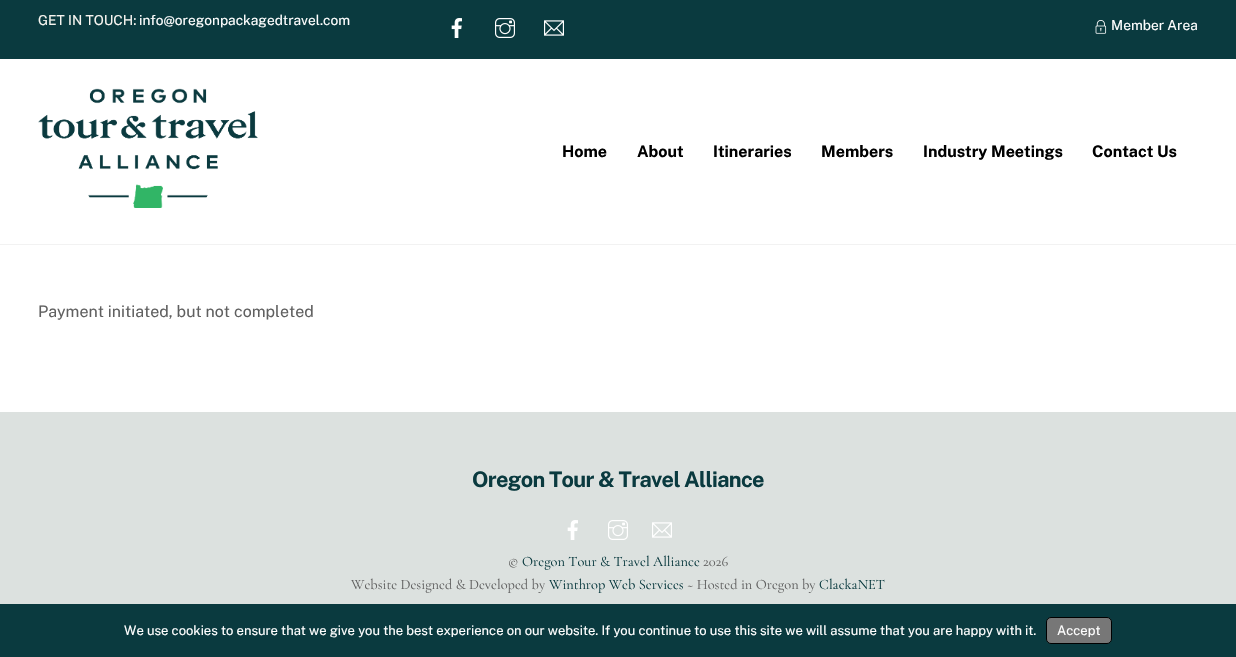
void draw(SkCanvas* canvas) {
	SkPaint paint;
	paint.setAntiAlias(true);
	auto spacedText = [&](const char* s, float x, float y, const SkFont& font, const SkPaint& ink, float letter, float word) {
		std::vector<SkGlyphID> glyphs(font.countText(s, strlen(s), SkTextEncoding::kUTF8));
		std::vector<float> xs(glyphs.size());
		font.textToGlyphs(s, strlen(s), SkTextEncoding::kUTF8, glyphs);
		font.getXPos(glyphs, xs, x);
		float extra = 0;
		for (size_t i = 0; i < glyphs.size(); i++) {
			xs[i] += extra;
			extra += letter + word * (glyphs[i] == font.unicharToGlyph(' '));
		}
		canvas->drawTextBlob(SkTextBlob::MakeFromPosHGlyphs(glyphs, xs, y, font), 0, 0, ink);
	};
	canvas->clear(0xffffffff);
	paint.setColor(0xfff2f2f2);
	canvas->drawRect(SkRect::MakeXYWH(0, 244, 1236, 1), paint);
	paint.setColor(0xff0a3a3f);
	canvas->drawRect(SkRect::MakeXYWH(0, 0, 1236, 59), paint);
	SkFont f1(fontMgr->matchFamilyStyle("Public Sans", SkFontStyle::Normal()), 13.7);
	f1.setSubpixel(true);
	paint.setColor(0xfff7f5f0);
	canvas->drawString("GET IN TOUCH:", 38, 25, f1, paint);
	paint.setColor(0xffffffff);
	canvas->drawString("info@oregonpackagedtravel.com", 139, 25, f1, paint);
	canvas->drawImageRect(SkImages::DeferredFromEncodedData(SkData::MakeFromFileName("img1.png")), SkRect::MakeXYWH(451, 18, 11, 20), SkSamplingOptions());
	canvas->drawImageRect(SkImages::DeferredFromEncodedData(SkData::MakeFromFileName("img2.png")), SkRect::MakeXYWH(495, 18, 20, 20), SkSamplingOptions());
	canvas->drawImageRect(SkImages::DeferredFromEncodedData(SkData::MakeFromFileName("img3.png")), SkRect::MakeXYWH(544, 20, 20, 16), SkSamplingOptions());
	canvas->drawImageRect(SkImages::DeferredFromEncodedData(SkData::MakeFromFileName("img4.png")), SkRect::MakeXYWH(1095, 20, 12, 14), SkSamplingOptions());
	canvas->drawString("Member Area", 1111, 30, f1, paint);
	canvas->drawImageRect(SkImages::DeferredFromEncodedData(SkData::MakeFromFileName("img5.png")), SkRect::MakeXYWH(38, 88, 220, 120), SkSamplingOptions());
	SkFont f2(fontMgr->matchFamilyStyle("Public Sans", SkFontStyle::Bold()), 16);
	f2.setSubpixel(true);
	paint.setColor(0xff000000);
	canvas->drawString("Home", 562, 157, f2, paint);
	canvas->drawString("About", 637, 157, f2, paint);
	canvas->drawString("Itineraries", 713, 157, f2, paint);
	canvas->drawString("Members", 821, 157, f2, paint);
	canvas->drawString("Industry Meetings", 923, 157, f2, paint);
	canvas->drawString("Contact Us", 1092, 157, f2, paint);
	SkFont f3(fontMgr->matchFamilyStyle("Public Sans", SkFontStyle::Normal()), 16);
	f3.setSubpixel(true);
	paint.setColor(0xff606060);
	canvas->drawString("Payment initiated, but not completed", 38, 317, f3, paint);
	paint.setColor(0xffdce1df);
	canvas->drawRect(SkRect::MakeXYWH(0, 412, 1236, 192), paint);
	SkFont f4(fontMgr->matchFamilyStyle("Public Sans", SkFontStyle::Bold()), 21.6);
	f4.setSubpixel(true);
	paint.setColor(0xff0a3a3f);
	spacedText("Oregon Tour & Travel Alliance", 472, 487, f4, paint, -0.65, 0);
	canvas->drawImageRect(SkImages::DeferredFromEncodedData(SkData::MakeFromFileName("img6.png")), SkRect::MakeXYWH(567, 520, 11, 20), SkSamplingOptions());
	canvas->drawImageRect(SkImages::DeferredFromEncodedData(SkData::MakeFromFileName("img7.png")), SkRect::MakeXYWH(608, 520, 20, 20), SkSamplingOptions());
	canvas->drawImageRect(SkImages::DeferredFromEncodedData(SkData::MakeFromFileName("img8.png")), SkRect::MakeXYWH(652, 522, 20, 16), SkSamplingOptions());
	SkFont f5(fontMgr->matchFamilyStyle("Cormorant Garamond", SkFontStyle::Normal()), 14.4);
	f5.setSubpixel(true);
	paint.setColor(0xff606060);
	canvas->drawString("©", 508, 566, f5, paint);
	paint.setColor(0xff0a3a3f);
	canvas->drawString("Oregon Tour & Travel Alliance", 522, 566, f5, paint);
	paint.setColor(0xff606060);
	canvas->drawString("2026", 703, 566, f5, paint);
	canvas->drawString("Website Designed & Developed by", 351, 589, f5, paint);
	paint.setColor(0xff0a3a3f);
	canvas->drawString("Winthrop Web Services", 549, 589, f5, paint);
	paint.setColor(0xff606060);
	canvas->drawString("~ Hosted in Oregon by", 687, 589, f5, paint);
	paint.setColor(0xff0a3a3f);
	canvas->drawString("ClackaNET", 819, 589, f5, paint);
	canvas->drawRect(SkRect::MakeXYWH(0, 604, 1236, 53), paint);
	SkFont f6(fontMgr->matchFamilyStyle("Public Sans", SkFontStyle::Normal()), 13);
	f6.setSubpixel(true);
	paint.setColor(0xffffffff);
	canvas->drawString("We use cookies to ensure that we give you the best experience on our website. If you continue to use this site we will assume that you are happy with it.", 124, 635, f6, paint);
	paint.setColor(0xff777777);
	canvas->drawRoundRect(SkRect::MakeXYWH(1046.5, 617.5, 65, 26), 4.5, 4.5, paint);
	paint.setStroke(true);
	paint.setStrokeWidth(1);
	paint.setColor(0xff000000);
	canvas->drawRoundRect(SkRect::MakeXYWH(1046.5, 617.5, 65, 26), 4.5, 4.5, paint);
	paint.setStroke(false);
	paint.setColor(0xffffffff);
	canvas->drawString("Accept", 1057, 635, f6, paint);
}
